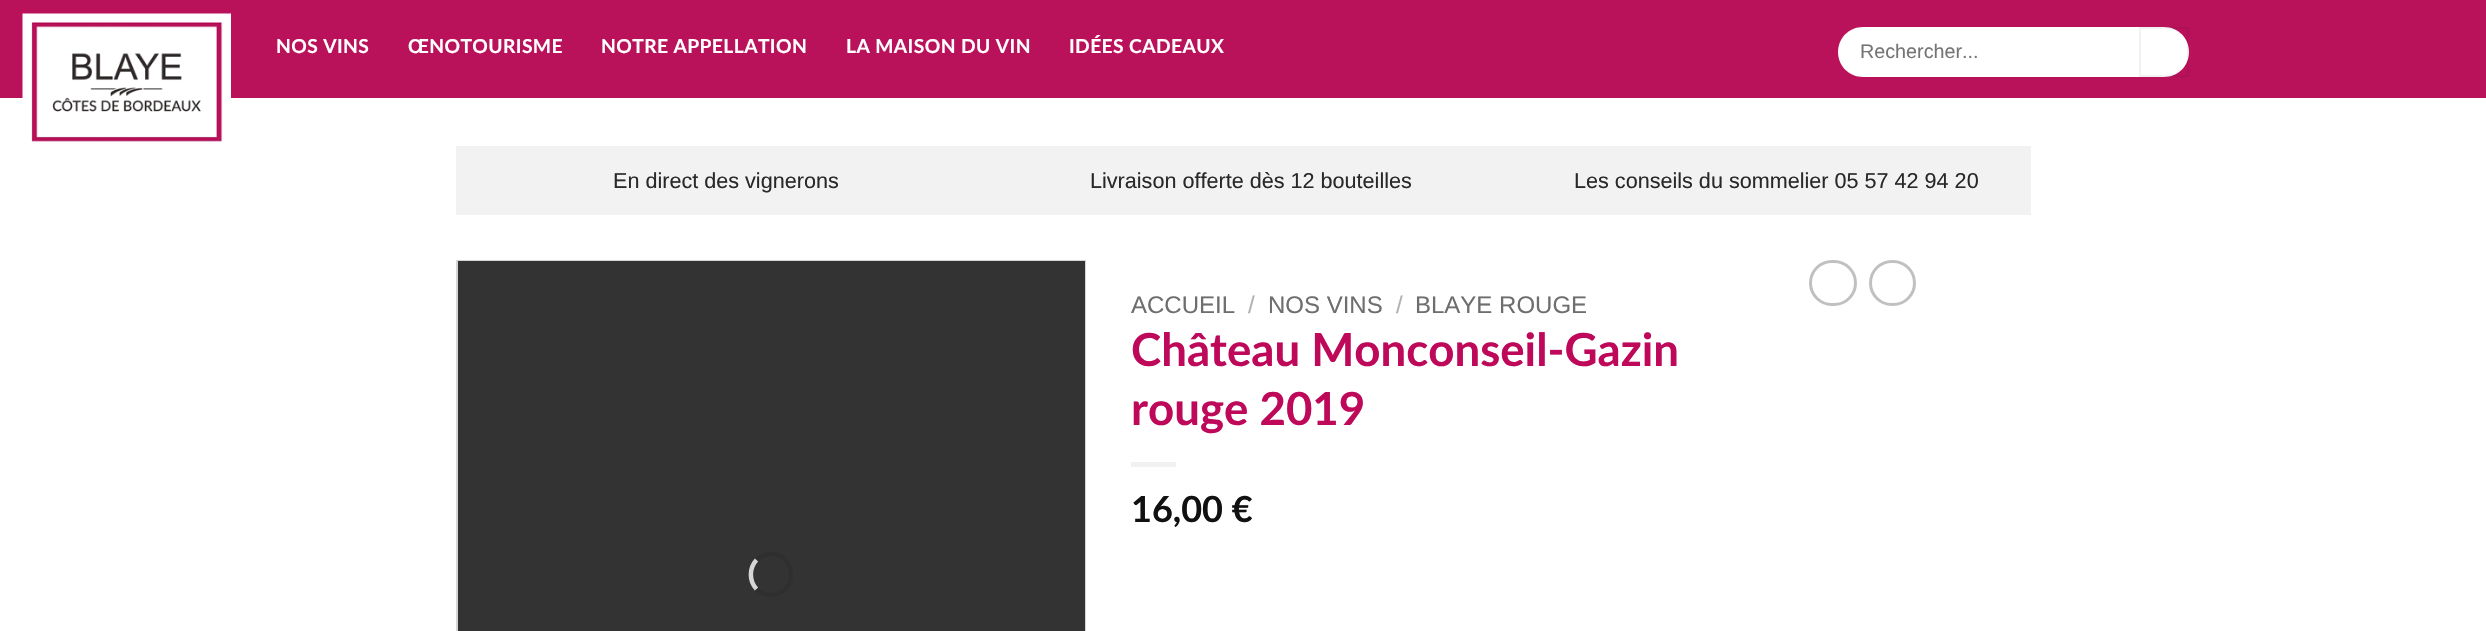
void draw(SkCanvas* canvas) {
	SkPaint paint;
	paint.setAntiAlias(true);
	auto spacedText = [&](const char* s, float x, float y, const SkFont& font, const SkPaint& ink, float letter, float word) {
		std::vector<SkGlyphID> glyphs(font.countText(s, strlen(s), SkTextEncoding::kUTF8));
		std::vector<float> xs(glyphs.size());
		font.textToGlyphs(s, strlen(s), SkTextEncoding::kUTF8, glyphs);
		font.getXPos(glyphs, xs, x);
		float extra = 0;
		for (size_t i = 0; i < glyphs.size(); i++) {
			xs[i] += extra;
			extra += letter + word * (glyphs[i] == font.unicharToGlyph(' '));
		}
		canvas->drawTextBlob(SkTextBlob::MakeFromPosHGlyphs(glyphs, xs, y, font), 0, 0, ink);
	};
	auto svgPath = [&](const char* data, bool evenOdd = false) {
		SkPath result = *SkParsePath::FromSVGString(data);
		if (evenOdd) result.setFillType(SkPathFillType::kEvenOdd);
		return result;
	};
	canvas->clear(0xffffffff);
	paint.setColor(0xffb9115a);
	canvas->drawRect(SkRect::MakeXYWH(0, 0, 2486, 98), paint);
	canvas->drawImageRect(SkImages::DeferredFromEncodedData(SkData::MakeFromFileName("img1.png")), SkRect::MakeXYWH(22, 13, 209, 129), SkSamplingOptions());
	SkFont f1(fontMgr->matchFamilyStyle("Lato", SkFontStyle::Bold()), 19.25);
	f1.setSubpixel(true);
	paint.setColor(0xffffffff);
	spacedText("NOS VINS", 276, 53, f1, paint, 0.4, 0);
	spacedText("ŒNOTOURISME", 408, 53, f1, paint, 0.4, 0);
	spacedText("NOTRE APPELLATION", 601, 53, f1, paint, 0.4, 0);
	spacedText("LA MAISON DU VIN", 846, 53, f1, paint, 0.4, 0);
	spacedText("IDÉES CADEAUX", 1069, 53, f1, paint, 0.4, 0);
	canvas->drawPath(svgPath("M1863 27H2139V77H1863C1849 77 1838 66 1838 52C1838 38 1849 27 1863 27Z"), paint);
	SkFont f2(fontMgr->matchFamilyStyle("Liberation Sans", SkFontStyle::Normal()), 19.75);
	f2.setSubpixel(true);
	paint.setColor(0xff757575);
	canvas->drawString("Rechercher...", 1860, 58, f2, paint);
	paint.setColor(0xffffffff);
	canvas->drawPath(svgPath("M2139 27H2164C2178 27 2189 38 2189 52C2189 66 2178 77 2164 77H2139Z"), paint);
	paint.setStroke(true);
	paint.setStrokeWidth(2);
	paint.setColor(0x0d000000);
	canvas->drawRect(SkRect::MakeXYWH(2140, 28, 48, 48), paint);
	paint.setStroke(false);
	paint.setColor(0xfff2f2f2);
	canvas->drawRect(SkRect::MakeXYWH(456, 146, 1575, 69), paint);
	SkFont f3(fontMgr->matchFamilyStyle("Liberation Sans", SkFontStyle::Normal()), 21.6);
	f3.setSubpixel(true);
	paint.setColor(0xff292929);
	canvas->drawString("En direct des vignerons", 613, 188, f3, paint);
	canvas->drawString("Livraison offerte dès 12 bouteilles", 1090, 188, f3, paint);
	canvas->drawString("Les conseils du sommelier 05 57 42 94 20", 1574, 188, f3, paint);
	paint.setStroke(true);
	paint.setColor(0xffd5d5d5);
	canvas->drawRect(SkRect::MakeXYWH(457, 261, 628, 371), paint);
	paint.setStroke(false);
	paint.setColor(0xff333333);
	canvas->drawRect(SkRect::MakeXYWH(458, 261, 627, 370), paint);
	paint.setStroke(true);
	paint.setStrokeWidth(4.5);
	paint.setColor(0xff2f2f2f);
	canvas->drawPath(svgPath("M756.5 560C760.5 556.5 765.5 554 771 554C795 554 798.5 589.5 775 594.5C768.5 595.5 761.5 593.5 756.5 589"), paint);
	paint.setColor(0xffd6d6d6);
	canvas->drawPath(svgPath("M756.5 589C749 581 749 568 756.5 560"), paint);
	paint.setStrokeWidth(3);
	paint.setColor(0xffc0c0c0);
	canvas->drawRoundRect(SkRect::MakeXYWH(1810.5, 261.5, 45, 43), 21.5, 21.5, paint);
	canvas->drawRoundRect(SkRect::MakeXYWH(1870.5, 261.5, 44, 43), 21.5, 21.5, paint);
	SkFont f4(fontMgr->matchFamilyStyle("Liberation Sans", SkFontStyle::Normal()), 24);
	f4.setSubpixel(true);
	paint.setStroke(false);
	paint.setColor(0xff6e6e6e);
	canvas->drawString("ACCUEIL", 1131, 313, f4, paint);
	paint.setColor(0xffb2b2b2);
	canvas->drawString("/", 1248, 313, f4, paint);
	paint.setColor(0xff6e6e6e);
	canvas->drawString("NOS VINS", 1268, 313, f4, paint);
	paint.setColor(0xffb2b2b2);
	canvas->drawString("/", 1396, 313, f4, paint);
	paint.setColor(0xff6e6e6e);
	canvas->drawString("BLAYE ROUGE", 1415, 313, f4, paint);
	SkFont f5(fontMgr->matchFamilyStyle("Lato", SkFontStyle::Bold()), 45.6);
	f5.setSubpixel(true);
	paint.setColor(0xffbe0859);
	canvas->drawString("Château Monconseil-Gazin", 1131, 366, f5, paint);
	canvas->drawString("rouge 2019", 1131, 425, f5, paint);
	paint.setColor(0xfff1f1f0);
	canvas->drawRect(SkRect::MakeXYWH(1131, 462, 45, 5), paint);
	SkFont f6(fontMgr->matchFamilyStyle("Lato", SkFontStyle::Bold()), 36);
	f6.setSubpixel(true);
	paint.setColor(0xff111111);
	canvas->drawString("16,00 €", 1131, 522, f6, paint);
}
